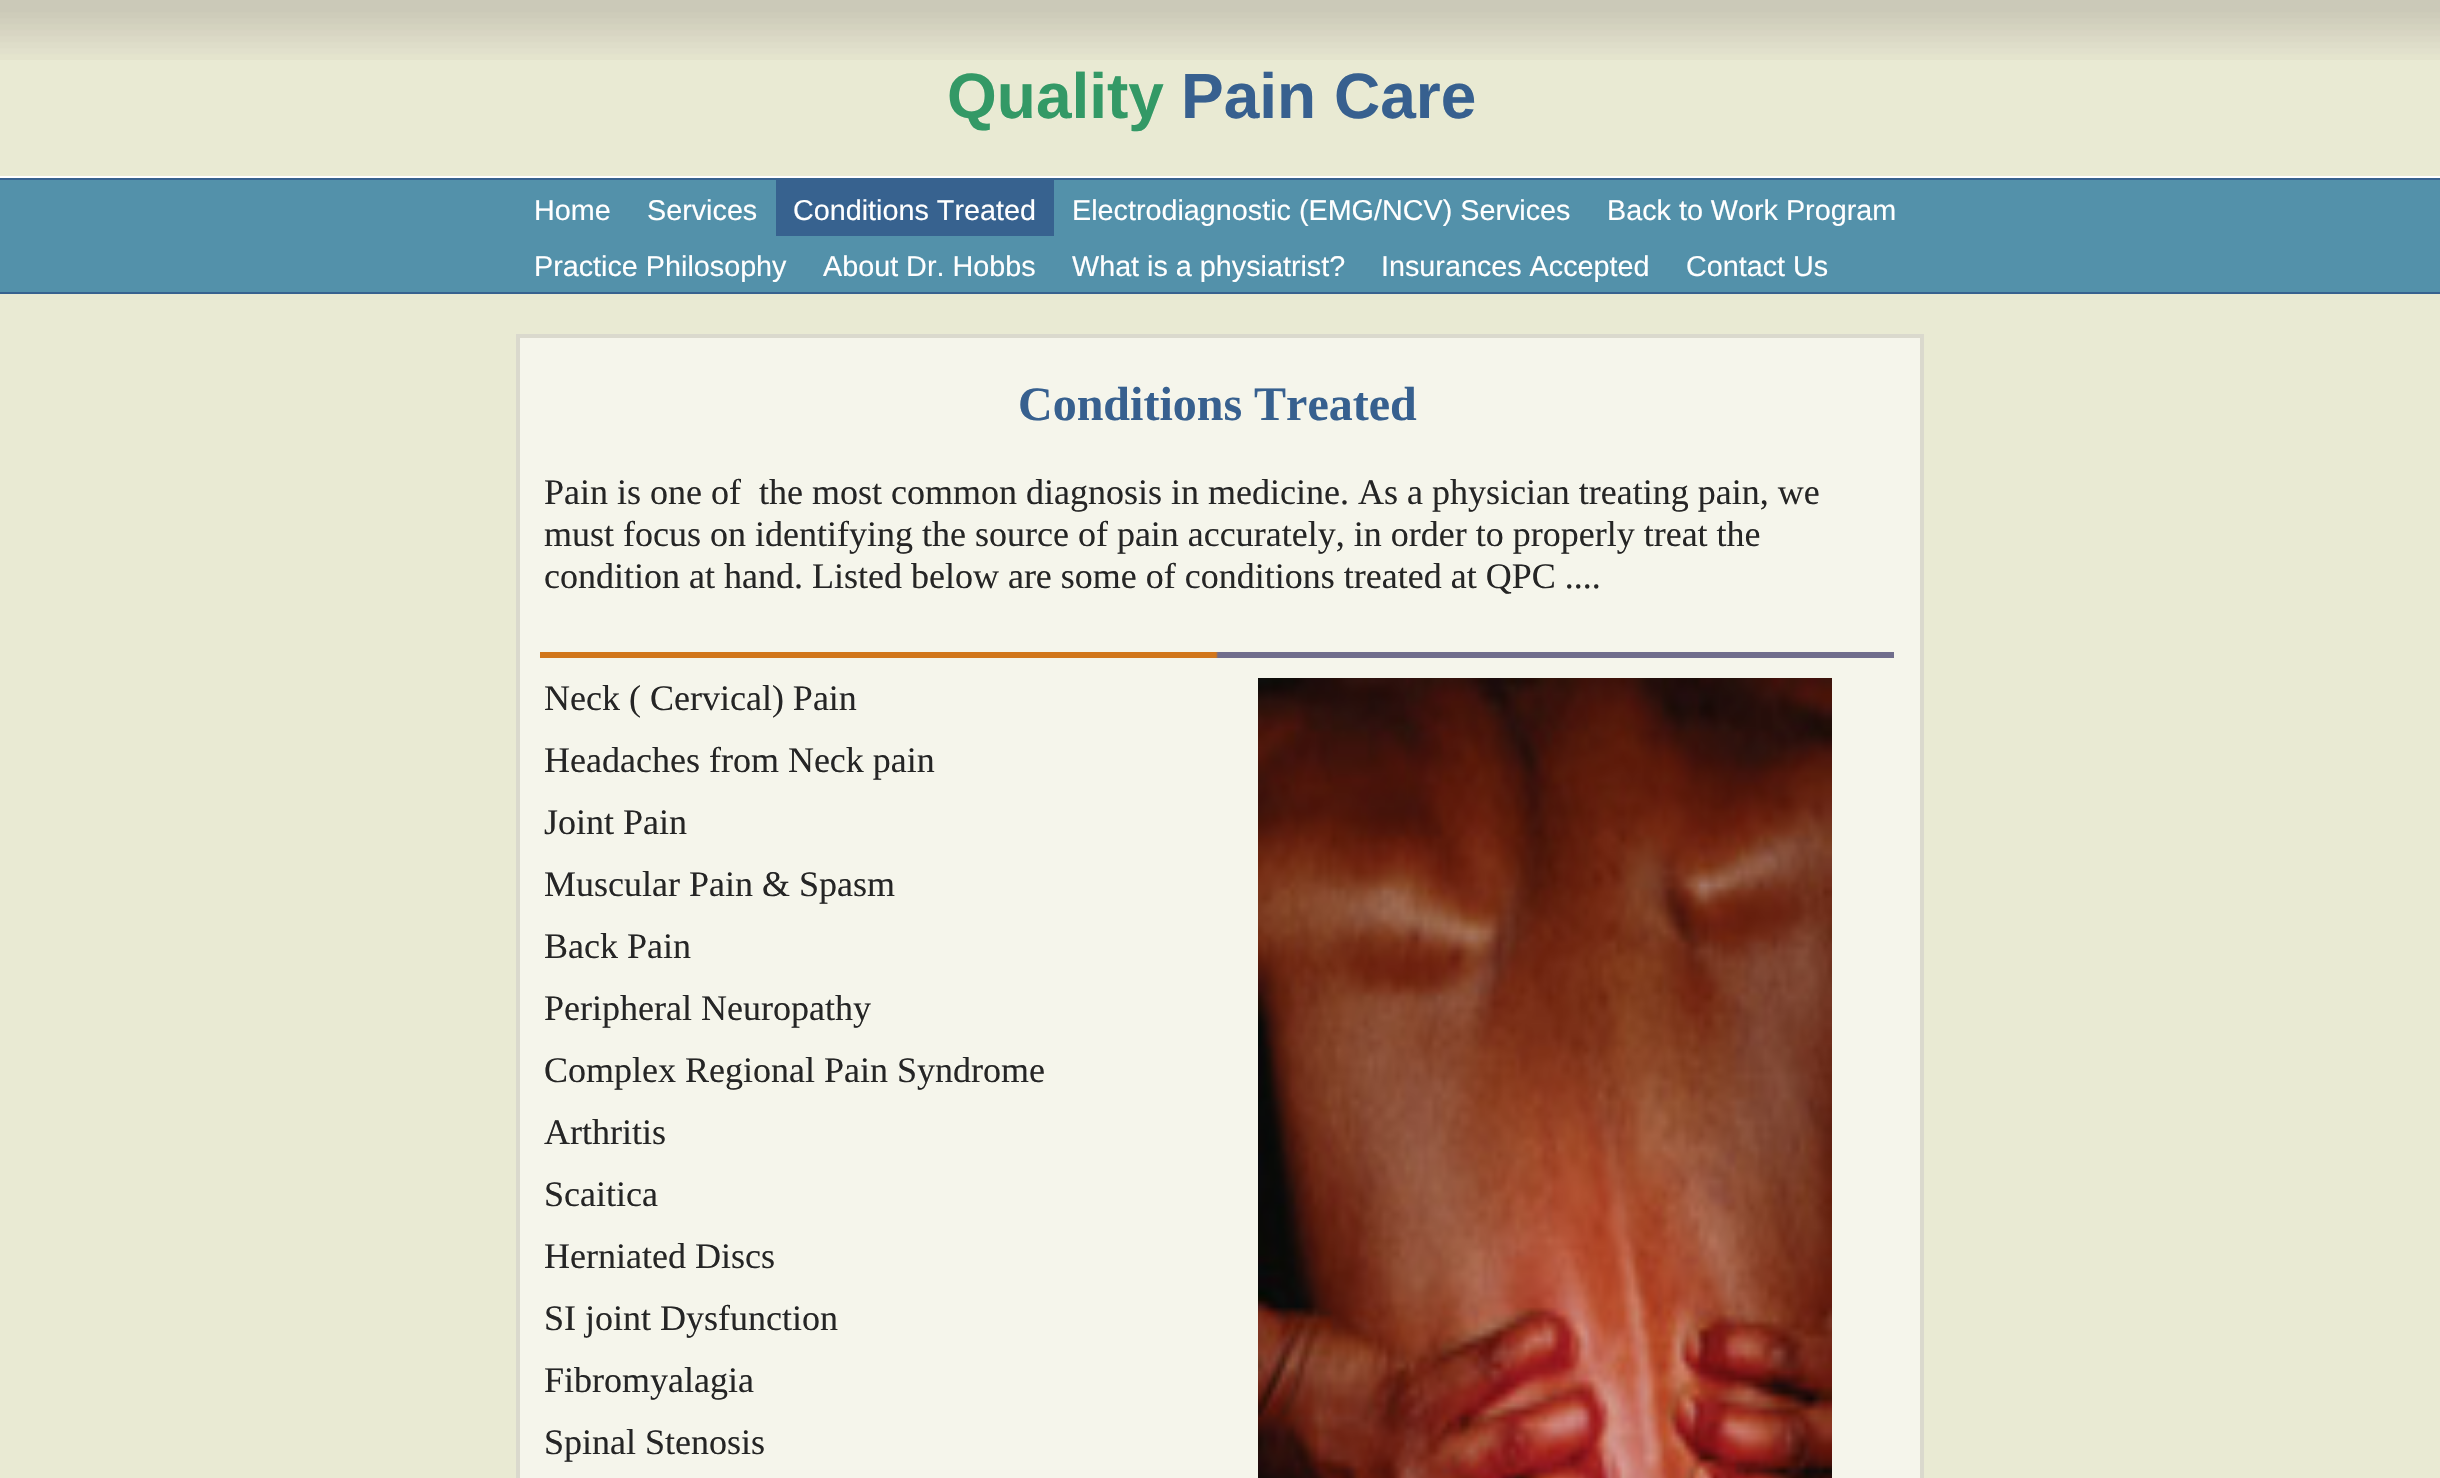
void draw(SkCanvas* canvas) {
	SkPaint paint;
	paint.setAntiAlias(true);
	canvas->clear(0xffe9ead3);
	canvas->drawImageRect(SkImages::DeferredFromEncodedData(SkData::MakeFromFileName("img1.png")), SkRect::MakeXYWH(0, 0, 2440, 60), SkSamplingOptions());
	paint.setColor(0xffffffff);
	canvas->drawRect(SkRect::MakeXYWH(0, 176, 2440, 2), paint);
	SkFont f1(fontMgr->matchFamilyStyle("Liberation Sans", SkFontStyle::Bold()), 64);
	f1.setSubpixel(true);
	paint.setColor(0xff339966);
	canvas->drawString("Quality", 947, 118, f1, paint);
	paint.setColor(0xff37608f);
	canvas->drawString("Pain Care", 1181, 118, f1, paint);
	paint.setColor(0xff5391aa);
	canvas->drawRect(SkRect::MakeXYWH(0, 180, 2440, 112), paint);
	paint.setColor(0xff37628f);
	canvas->drawRect(SkRect::MakeXYWH(0, 178, 2440, 2), paint);
	canvas->drawRect(SkRect::MakeXYWH(0, 292, 2440, 2), paint);
	SkFont f2(fontMgr->matchFamilyStyle("Liberation Sans", SkFontStyle::Normal()), 28.75);
	f2.setSubpixel(true);
	paint.setColor(0xffffffff);
	canvas->drawString("Home", 534, 220, f2, paint);
	canvas->drawString("Services", 647, 220, f2, paint);
	paint.setColor(0xff37628f);
	canvas->drawRect(SkRect::MakeXYWH(776, 180, 278, 56), paint);
	paint.setColor(0xffffffff);
	canvas->drawString("Conditions Treated", 793, 220, f2, paint);
	canvas->drawString("Electrodiagnostic (EMG/NCV) Services", 1072, 220, f2, paint);
	canvas->drawString("Back to Work Program", 1607, 220, f2, paint);
	canvas->drawString("Practice Philosophy", 534, 276, f2, paint);
	canvas->drawString("About Dr. Hobbs", 823, 276, f2, paint);
	canvas->drawString("What is a physiatrist?", 1072, 276, f2, paint);
	canvas->drawString("Insurances Accepted", 1381, 276, f2, paint);
	canvas->drawString("Contact Us", 1686, 276, f2, paint);
	paint.setColor(0xfff5f5eb);
	canvas->drawRect(SkRect::MakeXYWH(518, 336, 1404, 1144), paint);
	paint.setStroke(true);
	paint.setStrokeWidth(4);
	paint.setColor(0xffdad9cd);
	canvas->drawRect(SkRect::MakeXYWH(518, 336, 1404, 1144), paint);
	SkFont f3(fontMgr->matchFamilyStyle("Liberation Serif", SkFontStyle::Bold()), 48);
	f3.setSubpixel(true);
	paint.setStroke(false);
	paint.setColor(0xff37608f);
	canvas->drawString("Conditions Treated", 1018, 420, f3, paint);
	canvas->drawImageRect(SkImages::DeferredFromEncodedData(SkData::MakeFromFileName("img2.png")), SkRect::MakeXYWH(540, 652, 1354, 6), SkSamplingOptions());
	SkFont f4(fontMgr->matchFamilyStyle("Liberation Serif", SkFontStyle::Normal()), 36);
	f4.setSubpixel(true);
	paint.setColor(0xff252525);
	canvas->drawString("Pain is one of  the most common diagnosis in medicine. As a physician treating pain, we", 544, 504, f4, paint);
	canvas->drawString("must focus on identifying the source of pain accurately, in order to properly treat the", 544, 546, f4, paint);
	canvas->drawString("condition at hand. Listed below are some of conditions treated at QPC ....", 544, 588, f4, paint);
	canvas->drawString("Neck ( Cervical) Pain", 544, 710, f4, paint);
	canvas->drawString("Headaches from Neck pain", 544, 772, f4, paint);
	canvas->drawString("Joint Pain", 544, 834, f4, paint);
	canvas->drawString("Muscular Pain & Spasm", 544, 896, f4, paint);
	canvas->drawString("Back Pain", 544, 958, f4, paint);
	canvas->drawString("Peripheral Neuropathy", 544, 1020, f4, paint);
	canvas->drawString("Complex Regional Pain Syndrome", 544, 1082, f4, paint);
	canvas->drawString("Arthritis", 544, 1144, f4, paint);
	canvas->drawString("Scaitica", 544, 1206, f4, paint);
	canvas->drawString("Herniated Discs", 544, 1268, f4, paint);
	canvas->drawString("SI joint Dysfunction", 544, 1330, f4, paint);
	canvas->drawString("Fibromyalagia", 544, 1392, f4, paint);
	canvas->drawString("Spinal Stenosis", 544, 1454, f4, paint);
	canvas->drawImageRect(SkImages::DeferredFromEncodedData(SkData::MakeFromFileName("img3.png")), SkRect::MakeXYWH(1258, 678, 574, 800), SkSamplingOptions());
}
